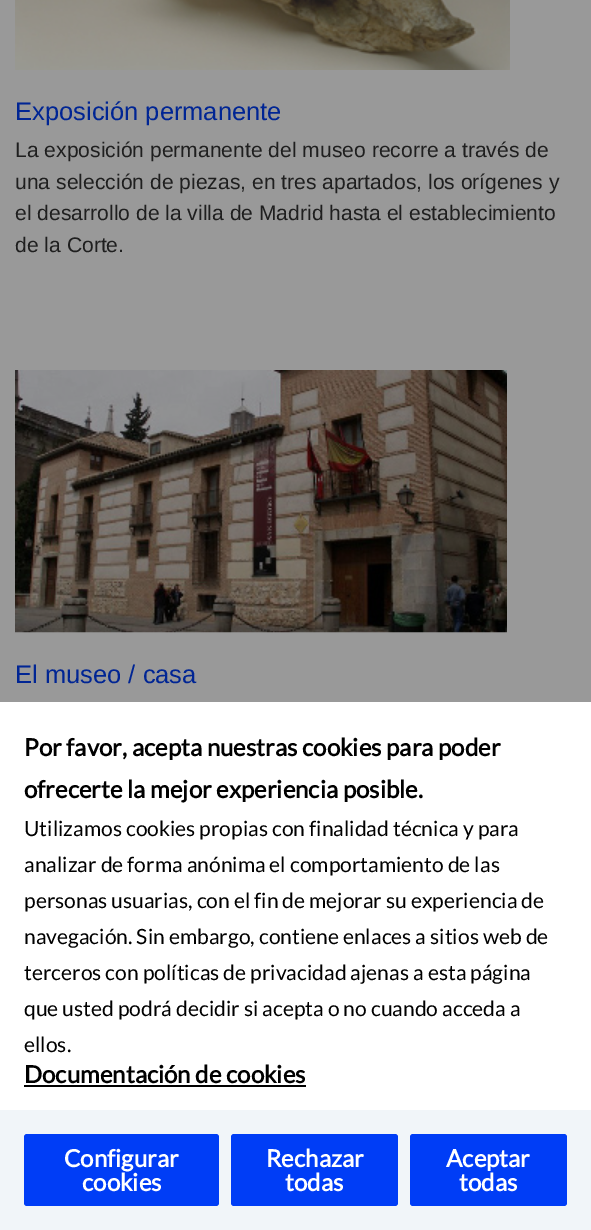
%!PS-Adobe-3.0
%%BoundingBox: 0 0 591 1230
%%LanguageLevel: 3
%%Pages: 1
%%EndComments
%%BeginProlog
/setink { 3 { 255 div 3 1 roll } repeat setrgbcolor } def
/usefont { [ exch dup neg 0 0 3 -1 roll 0 0 ] selectfont } def
/drawtext { setink usefont moveto show } def
/fillbox { setink rectfill } def
/rrect { 5 dict begin { /r /h /w /y /x } { exch def } forall
  x r add y moveto x w add y 2 copy h add r arct x w add y h add x 1 index r arct
  x y h add x y r arct x y 2 copy exch w add exch r arct closepath end } def
/drawimage { 5 dict begin { /h /w /y /x /name } { exch def } forall
  gsave x y translate w h scale
  w h 8 [w 0 0 h 0 0] name (r) file false 3 colorimage grestore end } def
%%EndProlog
%%BeginSetup
<< /PageSize [591 1230] >> setpagedevice
%%EndSetup
%%Page: 1 1
0 1230 translate 1 -1 scale
4 setmiterlimit
0 0 591 1230 153 153 153 fillbox
(assets/img1.rgb) 15 0 495 70 drawimage
(Exposición permanente) 15 120 /LiberationSans-Regular 25.5 0 37 148 drawtext
(La exposición permanente del museo recorre a través de) 15 157 /LiberationSans-Regular 21.1 31 31 31 drawtext
(una selección de piezas, en tres apartados, los orígenes y) 15 189 /LiberationSans-Regular 21.1 31 31 31 drawtext
(el desarrollo de la villa de Madrid hasta el establecimiento) 15 220 /LiberationSans-Regular 21.1 31 31 31 drawtext
(de la Corte.) 15 252 /LiberationSans-Regular 21.1 31 31 31 drawtext
(assets/img2.rgb) 15 370 492 263 drawimage
(El museo / casa) 15 683 /LiberationSans-Regular 25.5 0 37 148 drawtext
0 702 591 408 255 255 255 fillbox
(Por favor, acepta nuestras cookies para poder) 24 756 /Lato-Bold 24 0 0 0 drawtext
(ofrecerte la mejor experiencia posible.) 24 798 /Lato-Bold 24 0 0 0 drawtext
(Utilizamos cookies propias con finalidad técnica y para) 24 836 /Lato-Regular 21 0 0 0 drawtext
(analizar de forma anónima el comportamiento de las) 24 872 /Lato-Regular 21 0 0 0 drawtext
(personas usuarias, con el fin de mejorar su experiencia de) 24 908 /Lato-Regular 21 0 0 0 drawtext
(navegación. Sin embargo, contiene enlaces a sitios web de) 24 944 /Lato-Regular 21 0 0 0 drawtext
(terceros con políticas de privacidad ajenas a esta página) 24 980 /Lato-Regular 21 0 0 0 drawtext
(que usted podrá decidir si acepta o no cuando acceda a) 24 1016 /Lato-Regular 21 0 0 0 drawtext
(ellos.) 24 1052 /Lato-Regular 21 0 0 0 drawtext
(Documentación de cookies) 24 1083 /Lato-Bold 24 0 0 0 drawtext
24 1085 282 2 0 0 0 fillbox
0 1110 591 120 241 245 249 fillbox
0 61 246 setink
24 1134 195 72 3 rrect fill
(Configurar) 64 1167 /Lato-Bold 24 255 255 255 drawtext
(cookies) 82 1191 /Lato-Bold 24 255 255 255 drawtext
0 61 246 setink
231 1134 167 72 3 rrect fill
(Rechazar) 266 1167 /Lato-Bold 24 255 255 255 drawtext
(todas) 285 1191 /Lato-Bold 24 255 255 255 drawtext
0 61 246 setink
410 1134 157 72 3 rrect fill
(Aceptar) 446 1167 /Lato-Bold 24 255 255 255 drawtext
(todas) 459 1191 /Lato-Bold 24 255 255 255 drawtext
showpage
%%EOF
